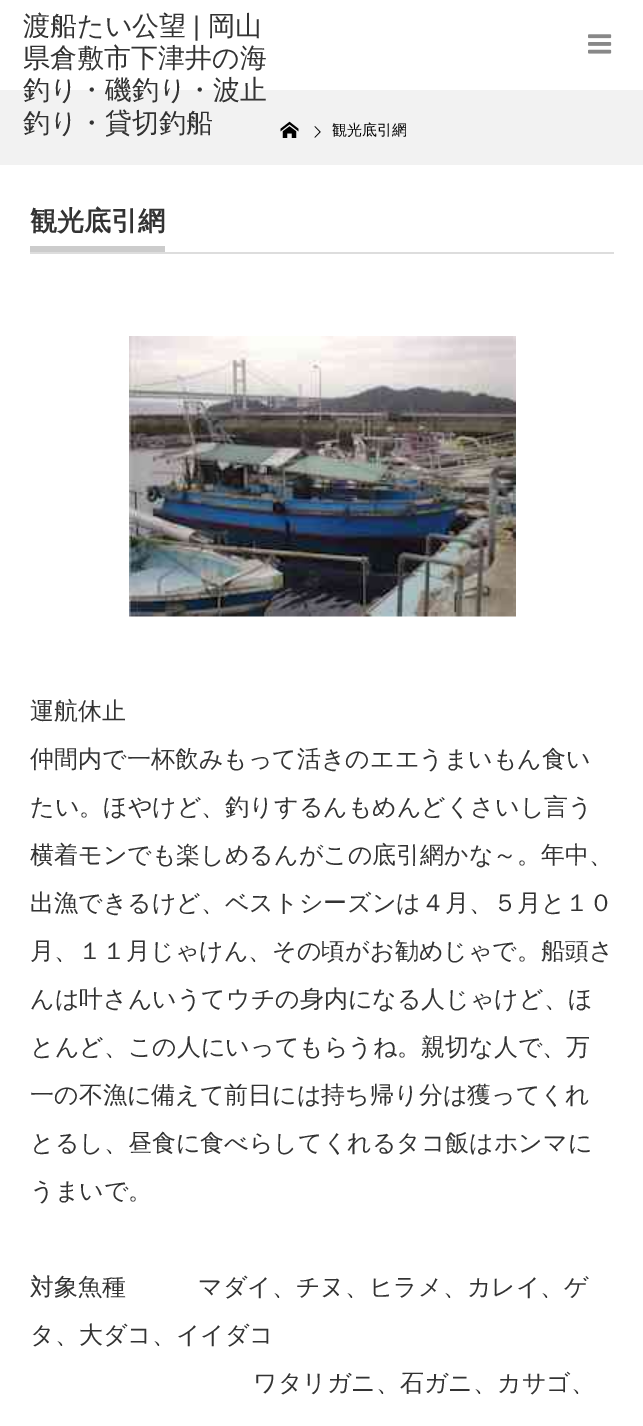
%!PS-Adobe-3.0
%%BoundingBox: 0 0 643 1426
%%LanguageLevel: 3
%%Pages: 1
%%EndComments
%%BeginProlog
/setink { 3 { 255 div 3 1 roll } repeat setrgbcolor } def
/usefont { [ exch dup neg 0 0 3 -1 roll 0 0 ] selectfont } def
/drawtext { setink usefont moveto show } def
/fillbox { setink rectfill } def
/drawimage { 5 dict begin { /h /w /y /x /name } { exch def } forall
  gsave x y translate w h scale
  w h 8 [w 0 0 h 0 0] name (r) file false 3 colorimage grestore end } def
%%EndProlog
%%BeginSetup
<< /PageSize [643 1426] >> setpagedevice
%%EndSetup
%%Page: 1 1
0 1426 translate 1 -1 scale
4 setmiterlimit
0 0 643 1426 255 255 255 fillbox
(渡船たい公望) 23 35 /WenQuanYiZenHei-Medium 27 51 51 51 drawtext
(|) 193 35 /LiberationSans-Regular 27 51 51 51 drawtext
(岡山) 208 35 /WenQuanYiZenHei-Medium 27 51 51 51 drawtext
(県倉敷市下津井の海) 23 67 /WenQuanYiZenHei-Medium 27 51 51 51 drawtext
0 90 643 75 242 242 242 fillbox
(釣り・磯釣り・波止) 23 99 /WenQuanYiZenHei-Medium 27 51 51 51 drawtext
(釣り・貸切釣船) 23 132 /WenQuanYiZenHei-Medium 27 51 51 51 drawtext
(assets/img1.rgb) 588 34 24 20 drawimage
(assets/img2.rgb) 280 121 19 17 drawimage
(assets/img3.rgb) 314 126 7 12 drawimage
(観光底引網) 332 135 /WenQuanYiZenHei-Medium 15 0 0 0 drawtext
30 252 584 2 221 221 221 fillbox
30 246 135 6 204 204 204 fillbox
(観光底引網) 30 230 /WenQuanYiZenHei-Bold 27 51 51 51 drawtext
(assets/img4.rgb) 129 336 387 281 drawimage
(運航休止) 30 719 /WenQuanYiZenHei-Medium 24 51 51 51 drawtext
(仲間内で一杯飲みもって活きのエエうまいもん食い) 30 767 /WenQuanYiZenHei-Medium 24 51 51 51 drawtext
(たい。ほやけど、釣りするんもめんどくさいし言う) 30 815 /WenQuanYiZenHei-Medium 24 51 51 51 drawtext
(横着モンでも楽しめるんがこの底引網かな～。年中、) 30 863 /WenQuanYiZenHei-Medium 24 51 51 51 drawtext
(出漁できるけど、ベストシーズンは４月、５月と１０) 30 911 /WenQuanYiZenHei-Medium 24 51 51 51 drawtext
(月、１１月じゃけん、その頃がお勧めじゃで。船頭さ) 30 959 /WenQuanYiZenHei-Medium 24 51 51 51 drawtext
(んは叶さんいうてウチの身内になる人じゃけど、ほ) 30 1007 /WenQuanYiZenHei-Medium 24 51 51 51 drawtext
(とんど、この人にいってもらうね。親切な人で、万) 30 1055 /WenQuanYiZenHei-Medium 24 51 51 51 drawtext
(一の不漁に備えて前日には持ち帰り分は獲ってくれ) 30 1103 /WenQuanYiZenHei-Medium 24 51 51 51 drawtext
(とるし、昼食に食べらしてくれるタコ飯はホンマに) 30 1151 /WenQuanYiZenHei-Medium 24 51 51 51 drawtext
(うまいで。) 30 1199 /WenQuanYiZenHei-Medium 24 51 51 51 drawtext
(対象魚種　　　マダイ、チヌ、ヒラメ、カレイ、ゲ) 30 1295 /WenQuanYiZenHei-Medium 24 51 51 51 drawtext
(タ、大ダコ、イイダコ) 30 1343 /WenQuanYiZenHei-Medium 24 51 51 51 drawtext
(ワタリガニ、石ガニ、カサゴ、) 253 1391 /WenQuanYiZenHei-Medium 24 51 51 51 drawtext
showpage
%%EOF
